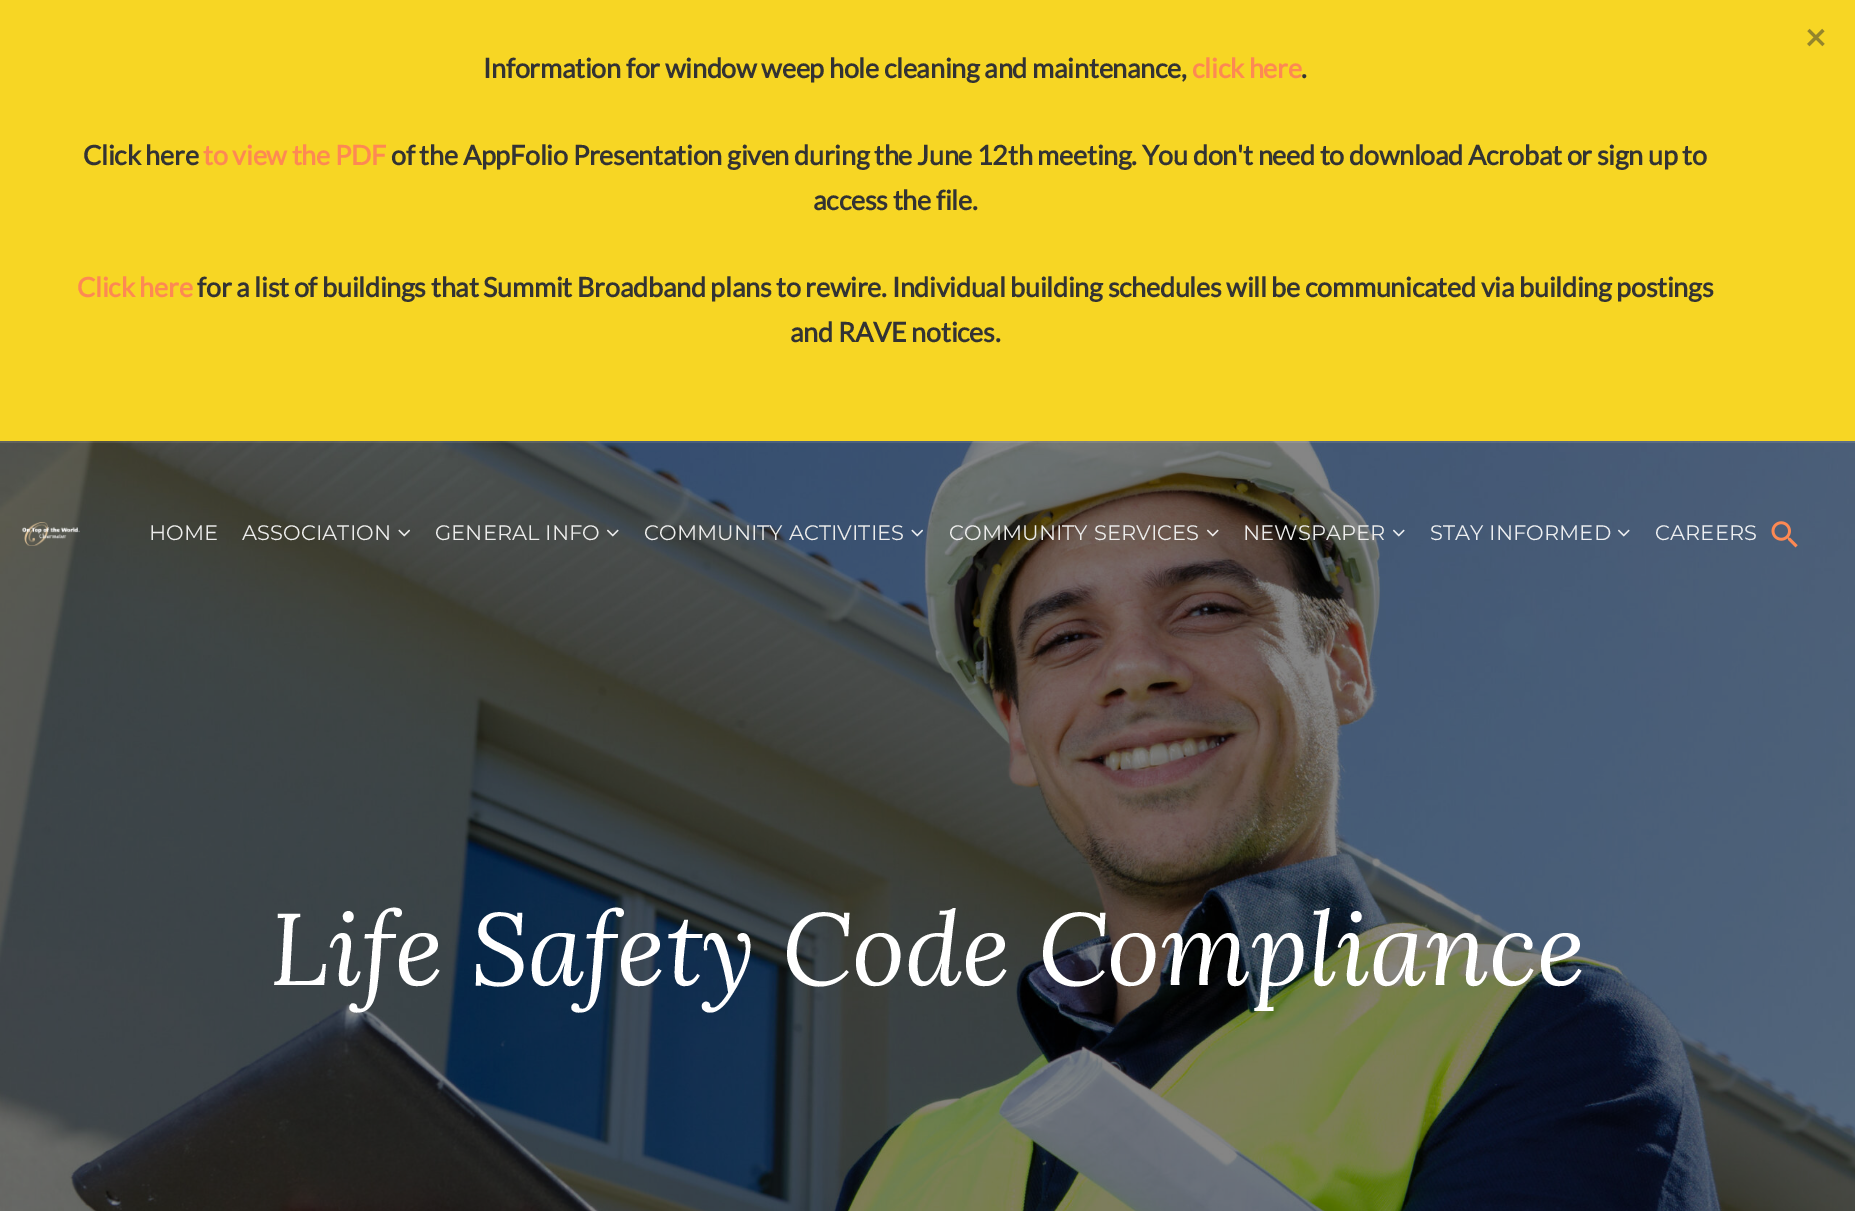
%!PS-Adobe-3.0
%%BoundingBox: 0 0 1855 1211
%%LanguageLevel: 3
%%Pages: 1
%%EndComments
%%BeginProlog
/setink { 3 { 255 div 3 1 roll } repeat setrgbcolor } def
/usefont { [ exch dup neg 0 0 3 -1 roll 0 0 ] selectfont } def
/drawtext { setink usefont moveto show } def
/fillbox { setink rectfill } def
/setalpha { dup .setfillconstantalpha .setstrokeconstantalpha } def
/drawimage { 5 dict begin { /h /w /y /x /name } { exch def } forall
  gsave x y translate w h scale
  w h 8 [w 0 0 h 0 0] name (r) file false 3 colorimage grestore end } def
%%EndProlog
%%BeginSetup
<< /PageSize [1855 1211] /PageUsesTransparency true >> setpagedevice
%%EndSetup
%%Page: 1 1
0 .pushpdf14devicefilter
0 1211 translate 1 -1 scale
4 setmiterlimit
0 0 1855 1211 255 255 255 fillbox
0 0 1855 441 247 214 36 fillbox
(×) 1805 50 /Lato-Bold 36 149 133 44 drawtext
/Lato-Bold 27 usefont
51 51 51 setink
483 78 moveto -0.3 0 (Information for window weep hole cleaning and maintenance,) ashow
253 137 83 setink
1192 78 moveto -0.3 0 (click here) ashow
51 51 51 setink
1301 78 moveto -0.3 0 (.) ashow
83 165 moveto -0.3 0 (Click here) ashow
253 137 83 setink
203 165 moveto -0.3 0 (to view the PDF) ashow
51 51 51 setink
391 165 moveto -0.3 0 (of the AppFolio Presentation given during the June 12th meeting. You don't need to download Acrobat or sign up to) ashow
813 210 moveto -0.3 0 (access the file.) ashow
253 137 83 setink
77 297 moveto -0.3 0 (Click here) ashow
51 51 51 setink
197 297 moveto -0.3 0 (for a list of buildings that Summit Broadband plans to rewire. Individual building schedules will be communicated via building postings) ashow
790 342 moveto -0.3 0 (and RAVE notices.) ashow
(assets/img9.rgb) 0 441 1855 770 drawimage
0.1 setalpha
0 441 1855 2 255 255 255 fillbox
1 setalpha
(assets/img1.rgb) 22 522 58 24 drawimage
/Montserrat-Regular 21 usefont
236 236 235 setink
149 540 moveto 0.1 0 (HOME) ashow
242 540 moveto 0.1 0 (ASSOCIATION) ashow
(assets/img2.rgb) 398 529 12 8 drawimage
435 540 moveto 0.1 0 (GENERAL INFO) ashow
(assets/img3.rgb) 607 529 12 8 drawimage
644 540 moveto 0.1 0 (COMMUNITY ACTIVITIES) ashow
(assets/img4.rgb) 911 529 12 8 drawimage
949 540 moveto 0.1 0 (COMMUNITY SERVICES) ashow
(assets/img5.rgb) 1207 529 12 8 drawimage
1243 540 moveto 0.1 0 (NEWSPAPER) ashow
(assets/img6.rgb) 1393 529 12 8 drawimage
237 239 241 setink
1430 540 moveto 0.1 0 (STAY INFORMED) ashow
(assets/img7.rgb) 1618 529 12 8 drawimage
1655 540 moveto 0.1 0 (CAREERS) ashow
(assets/img8.rgb) 1771 521 27 27 drawimage
(Life Safety Code Compliance) 270 985 /Lora-Italic 102 255 255 255 drawtext
.poppdf14devicefilter showpage
%%EOF
